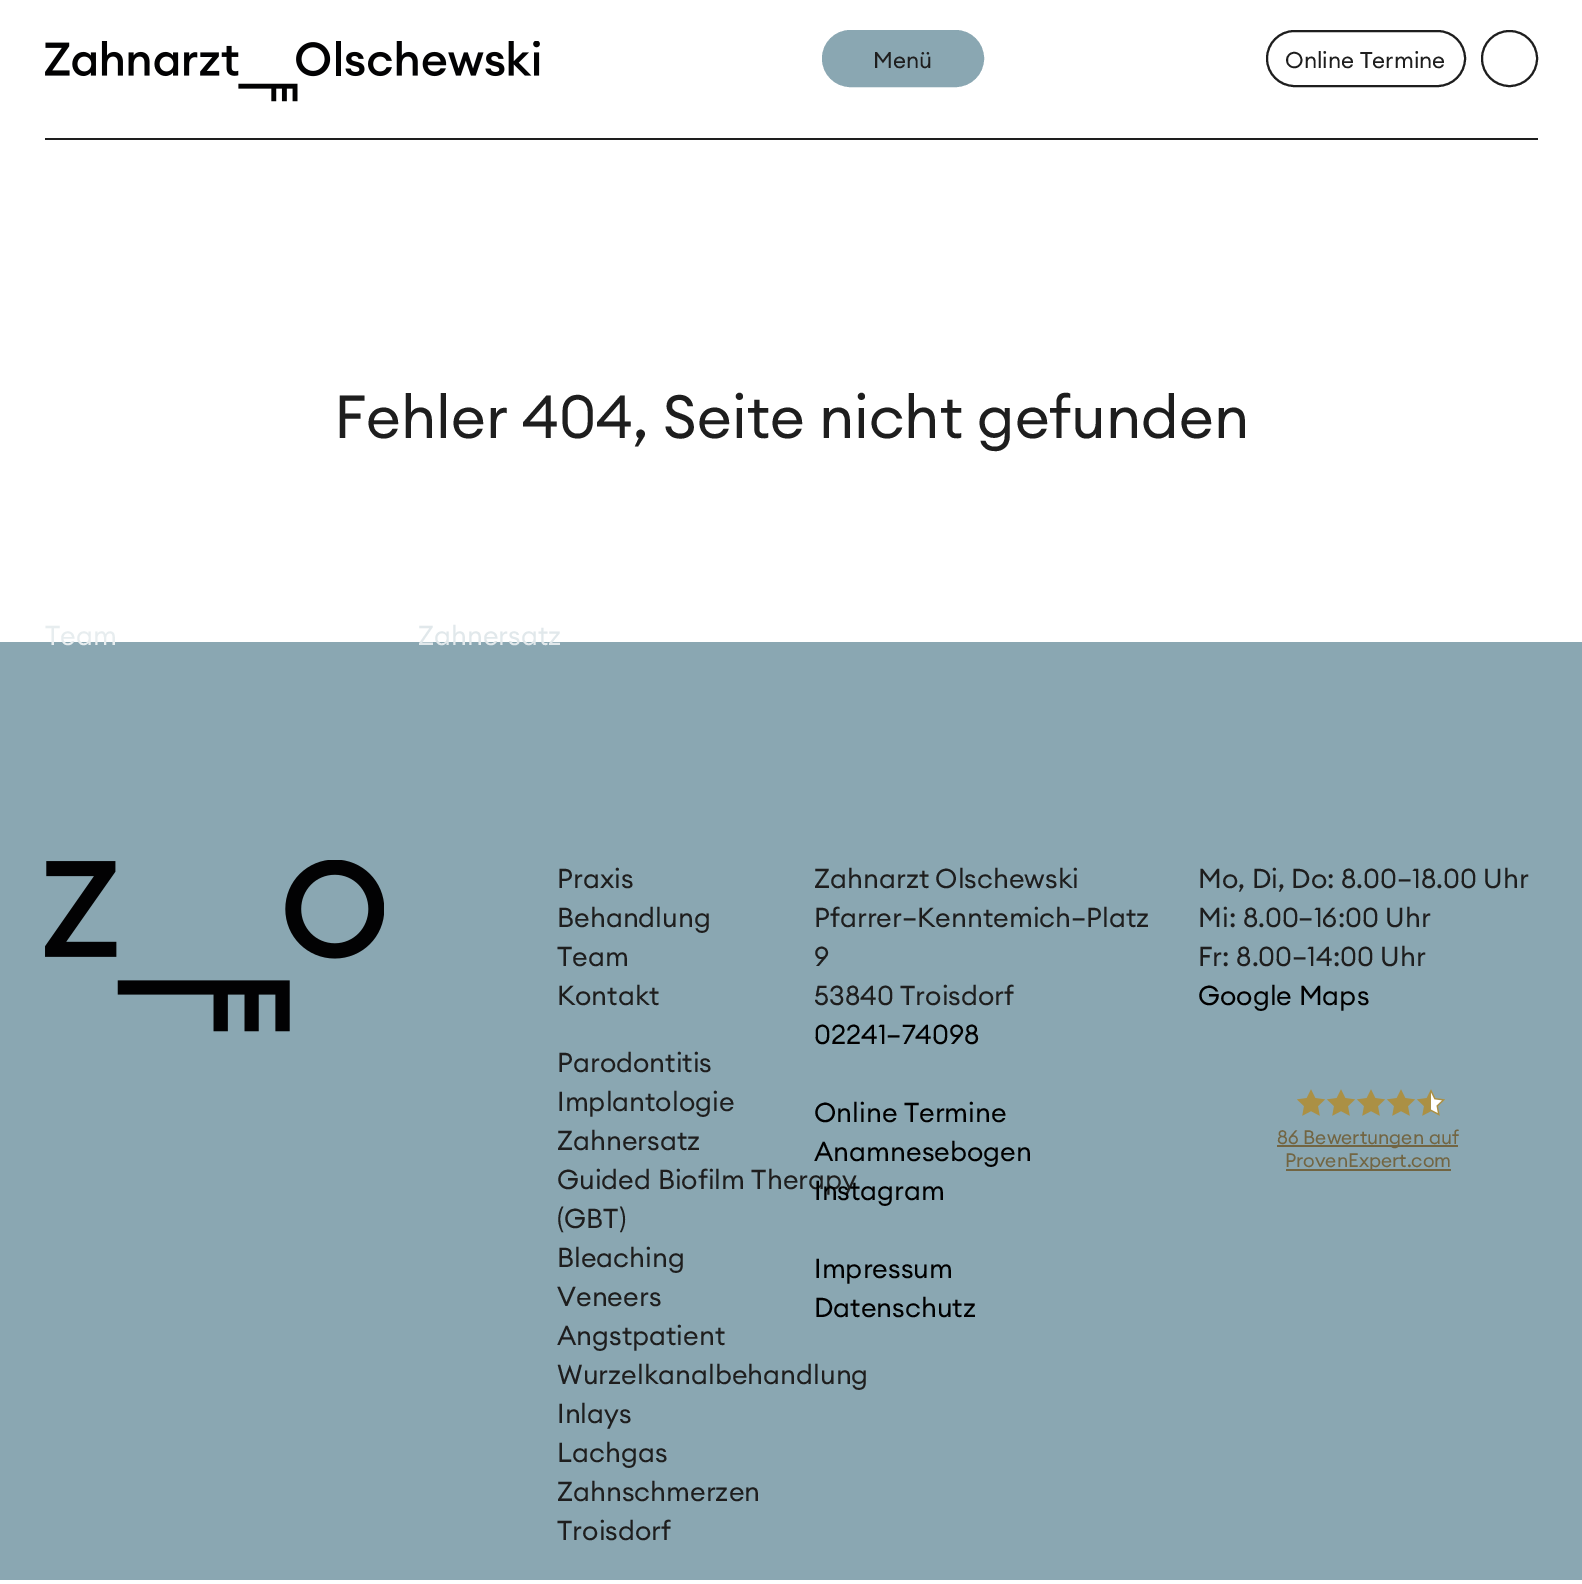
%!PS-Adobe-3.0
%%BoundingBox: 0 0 1582 1584
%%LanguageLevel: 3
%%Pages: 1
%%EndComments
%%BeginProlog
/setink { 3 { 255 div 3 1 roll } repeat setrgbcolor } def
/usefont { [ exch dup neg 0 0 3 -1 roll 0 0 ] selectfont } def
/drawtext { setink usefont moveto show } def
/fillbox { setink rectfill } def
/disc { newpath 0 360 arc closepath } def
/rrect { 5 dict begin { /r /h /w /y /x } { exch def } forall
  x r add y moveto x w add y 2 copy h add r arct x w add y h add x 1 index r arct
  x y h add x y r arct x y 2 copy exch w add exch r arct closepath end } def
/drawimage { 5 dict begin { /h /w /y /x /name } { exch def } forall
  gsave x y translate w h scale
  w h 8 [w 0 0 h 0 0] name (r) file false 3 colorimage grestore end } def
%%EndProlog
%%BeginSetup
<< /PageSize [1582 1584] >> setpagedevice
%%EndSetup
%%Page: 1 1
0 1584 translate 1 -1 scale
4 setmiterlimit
0 0 1582 1584 255 255 255 fillbox
(assets/img1.rgb) 45 41 495 61 drawimage
138 167 178 setink
823 31 160 55 27.5 rrect gsave fill grestore
2 setlinewidth
stroke
(Menü) 873 68 /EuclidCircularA-Regular 22.5 30 30 30 drawtext
1267 31 198 55 27.5 rrect stroke
(Online Termine) 1285 68 /EuclidCircularA-Regular 22.5 30 30 30 drawtext
1509.5 58.5 27.5 disc stroke
45 138 1493 2 30 30 30 fillbox
(Fehler 404, Seite nicht gefunden) 334 438 /EuclidCircularA-Regular 60 30 30 30 drawtext
0 642 1582 938 138 167 178 fillbox
(Team) 45 645 /EuclidCircularA-Regular 27 231 237 239 drawtext
(Zahnersatz) 418 645 /EuclidCircularA-Regular 27 225 232 235 drawtext
(assets/img2.rgb) 45 860 339 172 drawimage
(Praxis) 557 888 /EuclidCircularA-Regular 27 30 30 30 drawtext
(Behandlung) 557 927 /EuclidCircularA-Regular 27 30 30 30 drawtext
(Team) 557 966 /EuclidCircularA-Regular 27 30 30 30 drawtext
(Kontakt) 557 1005 /EuclidCircularA-Regular 27 30 30 30 drawtext
(Parodontitis) 557 1072 /EuclidCircularA-Regular 27 30 30 30 drawtext
(Implantologie) 557 1111 /EuclidCircularA-Regular 27 30 30 30 drawtext
(Zahnersatz) 557 1150 /EuclidCircularA-Regular 27 30 30 30 drawtext
(Guided Biofilm Therapy) 557 1189 /EuclidCircularA-Regular 27 30 30 30 drawtext
(\(GBT\)) 557 1228 /EuclidCircularA-Regular 27 30 30 30 drawtext
(Bleaching) 557 1267 /EuclidCircularA-Regular 27 30 30 30 drawtext
(Veneers) 557 1306 /EuclidCircularA-Regular 27 30 30 30 drawtext
(Angstpatient) 557 1345 /EuclidCircularA-Regular 27 30 30 30 drawtext
(Wurzelkanalbehandlung) 557 1384 /EuclidCircularA-Regular 27 30 30 30 drawtext
(Inlays) 557 1423 /EuclidCircularA-Regular 27 30 30 30 drawtext
(Lachgas) 557 1462 /EuclidCircularA-Regular 27 30 30 30 drawtext
(Zahnschmerzen) 557 1501 /EuclidCircularA-Regular 27 30 30 30 drawtext
(Troisdorf) 557 1540 /EuclidCircularA-Regular 27 30 30 30 drawtext
(Zahnarzt Olschewski) 814 888 /EuclidCircularA-Regular 27 30 30 30 drawtext
(Pfarrer–Kenntemich–Platz) 814 927 /EuclidCircularA-Regular 27 30 30 30 drawtext
(9) 814 966 /EuclidCircularA-Regular 27 30 30 30 drawtext
(53840 Troisdorf) 814 1005 /EuclidCircularA-Regular 27 30 30 30 drawtext
(02241–74098) 814 1044 /EuclidCircularA-Regular 27 0 0 0 drawtext
(Online Termine) 814 1122 /EuclidCircularA-Regular 27 0 0 0 drawtext
(Anamnesebogen) 814 1161 /EuclidCircularA-Regular 27 0 0 0 drawtext
(Instagram) 814 1200 /EuclidCircularA-Regular 27 0 0 0 drawtext
(Impressum) 814 1278 /EuclidCircularA-Regular 27 0 0 0 drawtext
(Datenschutz) 814 1317 /EuclidCircularA-Regular 27 0 0 0 drawtext
(Mo, Di, Do: 8.00–18.00 Uhr) 1198 888 /EuclidCircularA-Regular 27 30 30 30 drawtext
(Mi: 8.00–16:00 Uhr) 1198 927 /EuclidCircularA-Regular 27 30 30 30 drawtext
(Fr: 8.00–14:00 Uhr) 1198 966 /EuclidCircularA-Regular 27 30 30 30 drawtext
(Google Maps) 1198 1005 /EuclidCircularA-Regular 27 0 0 0 drawtext
(assets/img3.rgb) 1297 1089 28 27 drawimage
(assets/img3.rgb) 1327 1089 28 27 drawimage
(assets/img3.rgb) 1357 1089 28 27 drawimage
(assets/img3.rgb) 1387 1089 28 27 drawimage
(assets/img4.rgb) 1417 1089 28 27 drawimage
1277 1145 181 2 114 101 66 fillbox
(86 Bewertungen auf) 1277 1144 /EuclidCircularA-Regular 19.25 114 101 66 drawtext
1286 1169 165 2 114 101 66 fillbox
(ProvenExpert.com) 1285 1167 /EuclidCircularA-Regular 19.25 114 101 66 drawtext
showpage
%%EOF
